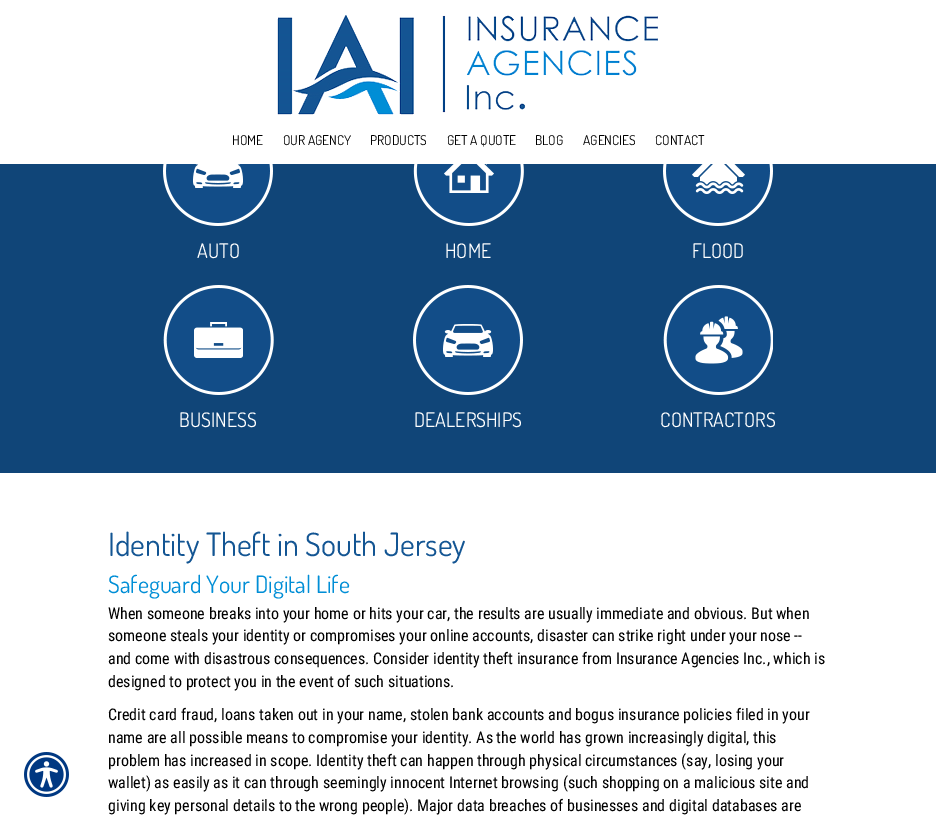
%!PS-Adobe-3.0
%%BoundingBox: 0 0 936 826
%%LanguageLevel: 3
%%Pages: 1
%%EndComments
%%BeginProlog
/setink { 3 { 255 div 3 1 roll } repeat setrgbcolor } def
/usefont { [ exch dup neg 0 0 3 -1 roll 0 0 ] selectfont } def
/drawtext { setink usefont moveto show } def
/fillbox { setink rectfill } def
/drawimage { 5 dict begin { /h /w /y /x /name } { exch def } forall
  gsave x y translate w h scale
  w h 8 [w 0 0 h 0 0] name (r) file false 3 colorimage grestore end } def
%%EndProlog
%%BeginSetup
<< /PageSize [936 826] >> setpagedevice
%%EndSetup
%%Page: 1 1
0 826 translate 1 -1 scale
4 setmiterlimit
0 0 936 826 255 255 255 fillbox
(assets/img1.rgb) 24 752 45 45 drawimage
(assets/img2.rgb) 277 15 381 100 drawimage
(HOME) 232 145 /Dosis-Regular 13.5 0 0 0 drawtext
(OUR AGENCY) 283 145 /Dosis-Regular 13.5 0 0 0 drawtext
(PRODUCTS) 370 145 /Dosis-Regular 13.5 0 0 0 drawtext
(GET A QUOTE) 447 145 /Dosis-Regular 13.5 0 0 0 drawtext
(BLOG) 535 145 /Dosis-Regular 13.5 0 0 0 drawtext
(AGENCIES) 583 145 /Dosis-Regular 13.5 0 0 0 drawtext
(CONTACT) 655 145 /Dosis-Regular 13.5 0 0 0 drawtext
0 164 936 309 16 69 120 fillbox
(assets/img3.rgb) 163 164 110 62 drawimage
(AUTO) 197 258 /Dosis-Regular 20 255 255 255 drawtext
(assets/img4.rgb) 413 164 111 62 drawimage
(HOME) 445 258 /Dosis-Regular 20 255 255 255 drawtext
(assets/img5.rgb) 663 164 110 62 drawimage
(FLOOD) 692 258 /Dosis-Regular 20 255 255 255 drawtext
(assets/img6.rgb) 163 285 111 110 drawimage
(BUSINESS) 179 427 /Dosis-Regular 20 255 255 255 drawtext
(assets/img7.rgb) 413 285 110 110 drawimage
(DEALERSHIPS) 414 427 /Dosis-Regular 20 255 255 255 drawtext
(assets/img8.rgb) 663 285 110 110 drawimage
(CONTRACTORS) 660 427 /Dosis-Regular 20 255 255 255 drawtext
(Identity Theft in South Jersey) 108 556 /Dosis-Regular 32 19 85 147 drawtext
(Safeguard Your Digital Life) 108 593 /Dosis-Regular 24 0 142 214 drawtext
(When someone breaks into your home or hits your car, the results are usually immediate and obvious. But when) 108 619 /RobotoCondensed-Regular 16 0 0 0 drawtext
(someone steals your identity or compromises your online accounts, disaster can strike right under your nose --) 108 641 /RobotoCondensed-Regular 16 0 0 0 drawtext
(and come with disastrous consequences. Consider identity theft insurance from Insurance Agencies Inc., which is) 108 664 /RobotoCondensed-Regular 16 0 0 0 drawtext
(designed to protect you in the event of such situations.) 108 687 /RobotoCondensed-Regular 16 0 0 0 drawtext
(Credit card fraud, loans taken out in your name, stolen bank accounts and bogus insurance policies filed in your) 108 720 /RobotoCondensed-Regular 16 0 0 0 drawtext
(name are all possible means to compromise your identity. As the world has grown increasingly digital, this) 108 743 /RobotoCondensed-Regular 16 0 0 0 drawtext
(problem has increased in scope. Identity theft can happen through physical circumstances \(say, losing your) 108 766 /RobotoCondensed-Regular 16 0 0 0 drawtext
(wallet\) as easily as it can through seemingly innocent Internet browsing \(such shopping on a malicious site and) 108 788 /RobotoCondensed-Regular 16 0 0 0 drawtext
(giving key personal details to the wrong people\). Major data breaches of businesses and digital databases are) 108 811 /RobotoCondensed-Regular 16 0 0 0 drawtext
showpage
%%EOF
